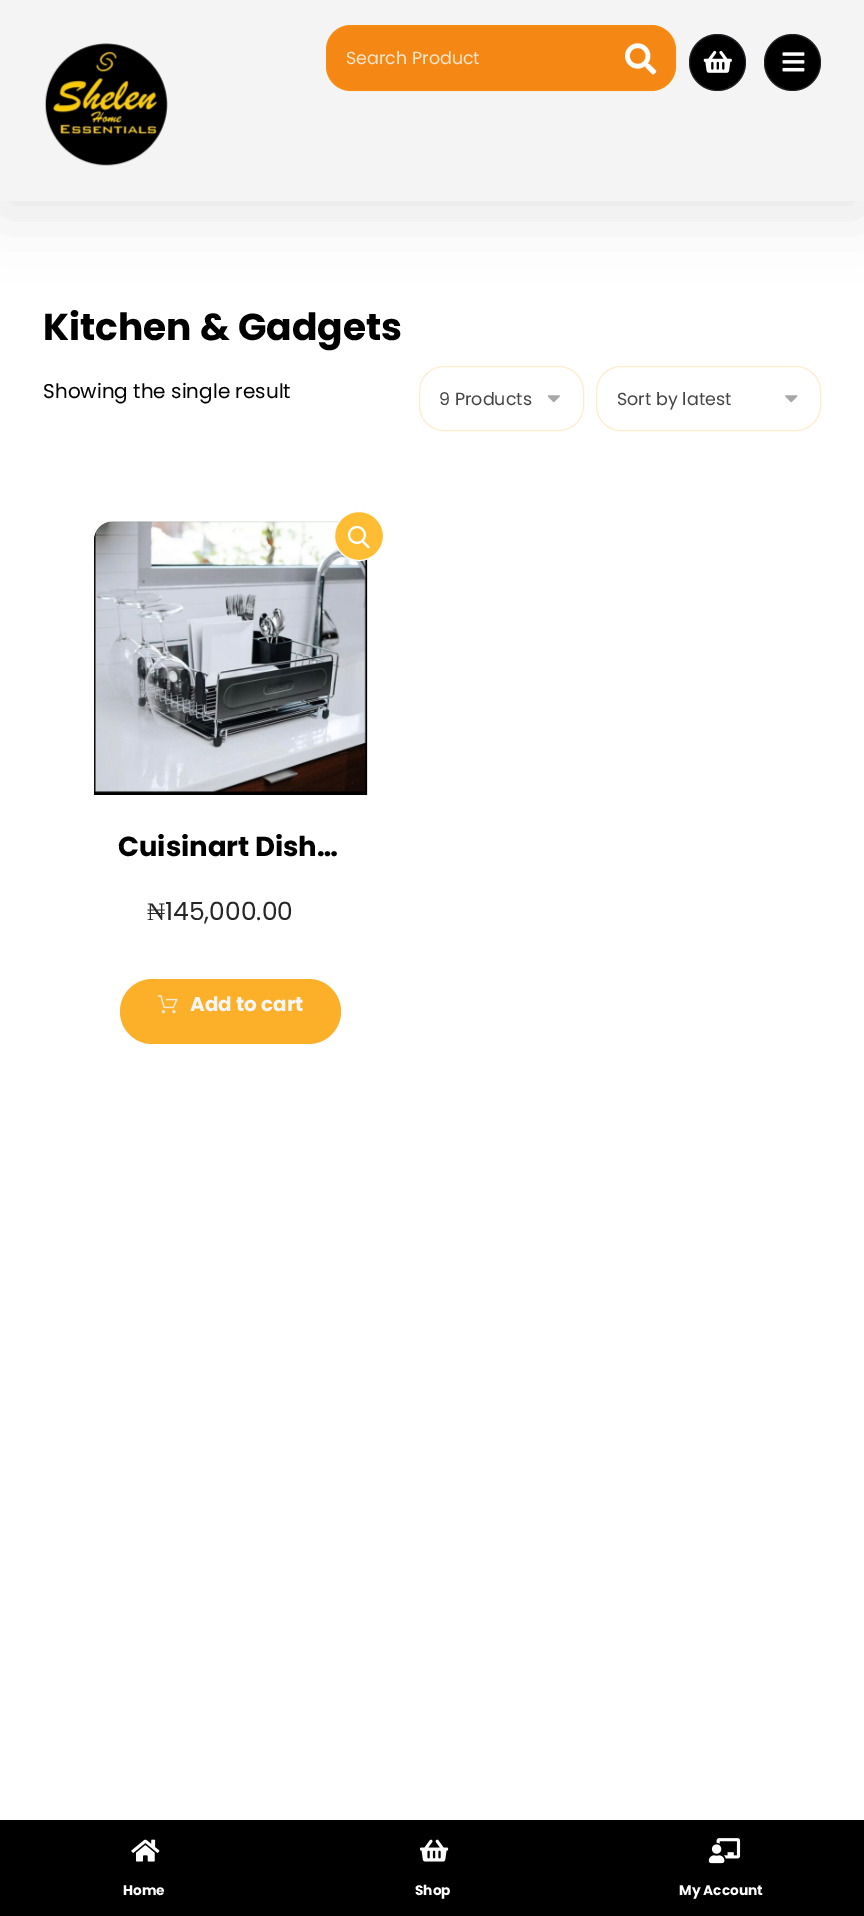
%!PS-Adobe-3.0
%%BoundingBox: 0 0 864 1916
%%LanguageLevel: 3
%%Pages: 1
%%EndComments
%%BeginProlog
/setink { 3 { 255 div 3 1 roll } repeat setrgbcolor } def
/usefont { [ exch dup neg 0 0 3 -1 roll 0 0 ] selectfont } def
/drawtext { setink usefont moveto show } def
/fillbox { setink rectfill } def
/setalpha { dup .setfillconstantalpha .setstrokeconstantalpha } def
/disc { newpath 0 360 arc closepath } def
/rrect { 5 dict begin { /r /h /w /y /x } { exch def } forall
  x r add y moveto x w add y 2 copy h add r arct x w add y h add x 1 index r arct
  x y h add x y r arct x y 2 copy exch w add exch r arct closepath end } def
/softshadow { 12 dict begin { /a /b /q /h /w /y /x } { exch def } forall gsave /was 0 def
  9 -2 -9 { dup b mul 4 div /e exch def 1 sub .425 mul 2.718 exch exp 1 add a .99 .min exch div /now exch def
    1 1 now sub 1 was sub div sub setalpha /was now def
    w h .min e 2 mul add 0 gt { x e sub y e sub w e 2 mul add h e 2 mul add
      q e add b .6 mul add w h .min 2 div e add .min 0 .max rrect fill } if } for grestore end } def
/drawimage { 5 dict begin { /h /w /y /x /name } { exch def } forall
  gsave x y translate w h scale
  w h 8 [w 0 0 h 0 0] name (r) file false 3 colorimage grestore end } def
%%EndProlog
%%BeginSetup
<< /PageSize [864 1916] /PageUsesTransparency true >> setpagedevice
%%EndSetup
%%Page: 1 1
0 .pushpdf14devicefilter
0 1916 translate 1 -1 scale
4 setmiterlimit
0 0 864 1916 255 255 255 fillbox
0 0 0 setink
0 13 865 201 0 31 0.1 softshadow
0 0 864 201 245 244 244 fillbox
(assets/img1.rgb) 45 43 123 123 drawimage
245 136 20 setink
326 25 350 66 25 rrect fill
0.2 setalpha
252 161 3 setink
326.5 25.5 349 65 24.5 rrect stroke
1 setalpha
(Search Product) 346 64 /Poppins-Regular 17.5 253 231 208 drawtext
(assets/img2.rgb) 625 43 32 32 drawimage
0 0 0 setink
717.5 62.5 28.5 disc fill
0.2 setalpha
159 182 203 setink
717.5 62.5 28 disc stroke
1 setalpha
(assets/img3.rgb) 703 50 29 23 drawimage
0 0 0 setink
792.5 62.5 28.5 disc fill
0.2 setalpha
159 182 203 setink
792.5 62.5 28 disc stroke
1 setalpha
(assets/img4.rgb) 782 52 23 20 drawimage
(Kitchen & Gadgets) 43 340 /Poppins-Bold 37.5 0 0 0 drawtext
(Showing the single result) 43 398 /Poppins-Regular 20 0 0 0 drawtext
(assets/img5.rgb) 548 395 12 8 drawimage
254 236 205 setink
419.5 366.5 164 64 24.5 rrect stroke
(9 Products) 439 405 /Poppins-Regular 17.5 68 68 68 drawtext
(assets/img6.rgb) 785 395 13 8 drawimage
254 236 205 setink
596.5 366.5 224 64 24.5 rrect stroke
(Sort by latest) 617 405 /Poppins-Regular 17.5 68 68 68 drawtext
(assets/img8.rgb) 94 521 274 274 drawimage
255 189 51 setink
359 536 24.5 disc gsave fill grestore
255 255 255 setink
stroke
(assets/img7.rgb) 347 525 23 24 drawimage
(Cuisinart Dish…) 118 856 /Poppins-Bold 27.5 0 0 0 drawtext
(₦) 147 920 /LiberationSerif-Regular 25 38 38 38 drawtext
(145,000.00) 165 920 /Poppins-Regular 25 38 38 38 drawtext
252 175 41 setink
120 979 221 65 32.5 rrect fill
(assets/img9.rgb) 157 995 21 19 drawimage
(Add to cart) 190 1011 /Poppins-Bold 20 247 246 246 drawtext
0 1820 864 96 0 0 0 fillbox
(assets/img10.rgb) 131 1839 29 23 drawimage
(Home) 123 1895 /Poppins-Bold 13.75 255 255 255 drawtext
(assets/img11.rgb) 420 1839 29 23 drawimage
(Shop) 415 1895 /Poppins-Bold 13.75 255 255 255 drawtext
(assets/img12.rgb) 708 1838 33 26 drawimage
(My Account) 679 1895 /Poppins-Bold 13.75 255 255 255 drawtext
.poppdf14devicefilter showpage
%%EOF
